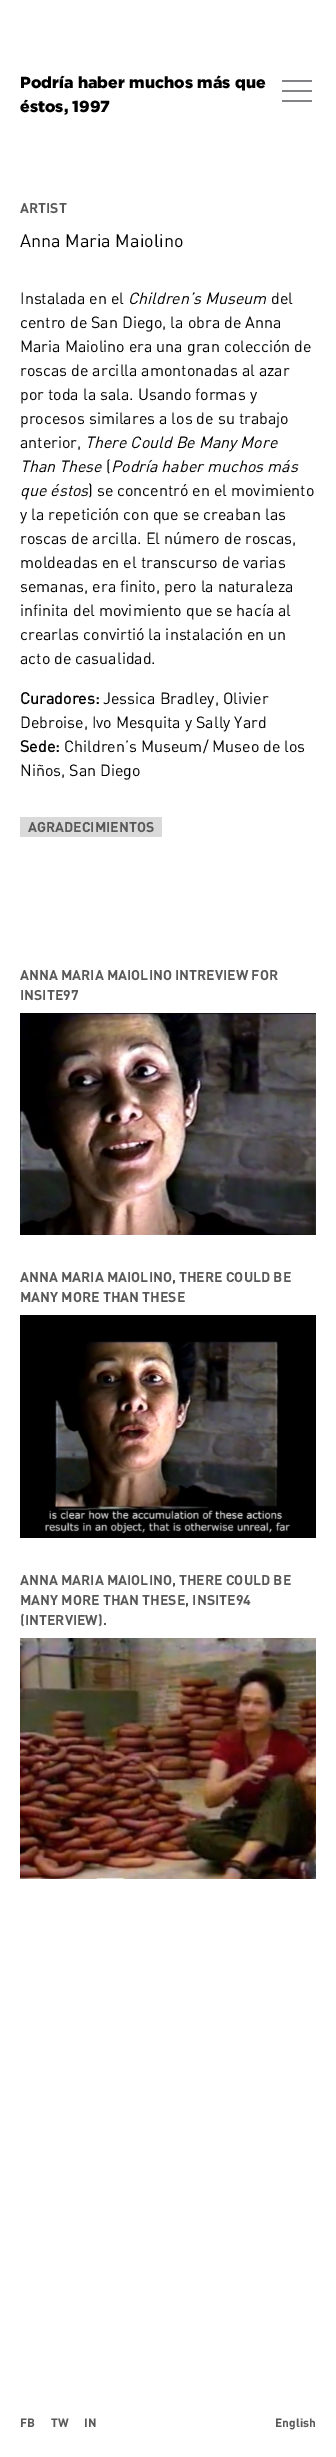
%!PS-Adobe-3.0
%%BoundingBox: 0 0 336 2457
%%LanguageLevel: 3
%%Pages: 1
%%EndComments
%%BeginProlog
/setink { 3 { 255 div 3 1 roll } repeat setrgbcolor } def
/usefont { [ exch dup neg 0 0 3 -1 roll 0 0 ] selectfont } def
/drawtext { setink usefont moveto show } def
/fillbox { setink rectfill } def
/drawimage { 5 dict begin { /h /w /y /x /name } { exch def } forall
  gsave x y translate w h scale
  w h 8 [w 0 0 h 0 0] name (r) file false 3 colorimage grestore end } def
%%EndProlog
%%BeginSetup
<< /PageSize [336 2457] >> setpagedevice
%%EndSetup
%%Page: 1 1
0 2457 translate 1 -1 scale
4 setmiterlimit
0 0 336 2457 255 255 255 fillbox
(Podría haber muchos más que) 20 88 /Gotham-Black 16 0 0 0 drawtext
(éstos, 1997) 20 112 /Gotham-Black 16 0 0 0 drawtext
(ARTIST) 20 213 /DIN-Bold 14 89 89 89 drawtext
(Anna Maria Maiolino) 20 247 /DIN-Regular 18 0 0 0 drawtext
(Instalada en el) 20 304 /DIN-Regular 16 0 0 0 drawtext
(Children’s Museum) 128 304 /DIN-Italic 16 0 0 0 drawtext
(del) 271 304 /DIN-Regular 16 0 0 0 drawtext
(centro de San Diego, la obra de Anna) 20 328 /DIN-Regular 16 0 0 0 drawtext
(Maria Maiolino era una gran colección de) 20 352 /DIN-Regular 16 0 0 0 drawtext
(roscas de arcilla amontonadas al azar) 20 376 /DIN-Regular 16 0 0 0 drawtext
(por toda la sala. Usando formas y) 20 400 /DIN-Regular 16 0 0 0 drawtext
(procesos similares a los de su trabajo) 20 424 /DIN-Regular 16 0 0 0 drawtext
(anterior,) 20 448 /DIN-Regular 16 0 0 0 drawtext
(There Could Be Many More) 85 448 /DIN-Italic 16 0 0 0 drawtext
(Than These) 20 472 /DIN-Italic 16 0 0 0 drawtext
(\() 106 472 /DIN-Regular 16 0 0 0 drawtext
(Podría haber muchos más) 111 472 /DIN-Italic 16 0 0 0 drawtext
(que éstos) 20 496 /DIN-Italic 16 0 0 0 drawtext
(\) se concentró en el movimiento) 88 496 /DIN-Regular 16 0 0 0 drawtext
(y la repetición con que se creaban las) 20 520 /DIN-Regular 16 0 0 0 drawtext
(roscas de arcilla. El número de roscas,) 20 544 /DIN-Regular 16 0 0 0 drawtext
(moldeadas en el transcurso de varias) 20 568 /DIN-Regular 16 0 0 0 drawtext
(semanas, era finito, pero la naturaleza) 20 592 /DIN-Regular 16 0 0 0 drawtext
(infinita del movimiento que se hacía al) 20 616 /DIN-Regular 16 0 0 0 drawtext
(crearlas convirtió la instalación en un) 20 640 /DIN-Regular 16 0 0 0 drawtext
(acto de casualidad.) 20 664 /DIN-Regular 16 0 0 0 drawtext
(Curadores:) 20 704 /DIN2-Bold 16 0 0 0 drawtext
(Jessica Bradley, Olivier) 103 704 /DIN-Regular 16 0 0 0 drawtext
(Debroise, Ivo Mesquita y Sally Yard) 20 728 /DIN-Regular 16 0 0 0 drawtext
(Sede:) 20 752 /DIN2-Bold 16 0 0 0 drawtext
(Children’s Museum/ Museo de los) 64 752 /DIN-Regular 16 0 0 0 drawtext
(Niños, San Diego) 20 776 /DIN-Regular 16 0 0 0 drawtext
20 817 142 20 218 218 218 fillbox
(AGRADECIMIENTOS) 28 832 /DIN-Bold 14 89 89 89 drawtext
(ANNA MARIA MAIOLINO INTREVIEW FOR) 20 980 /DIN-Bold 14 89 89 89 drawtext
(INSITE97) 20 1000 /DIN-Bold 14 89 89 89 drawtext
(assets/img1.rgb) 20 1013 296 222 drawimage
(ANNA MARIA MAIOLINO, THERE COULD BE) 20 1282 /DIN-Bold 14 89 89 89 drawtext
(MANY MORE THAN THESE) 20 1302 /DIN-Bold 14 89 89 89 drawtext
(assets/img2.rgb) 20 1315 296 223 drawimage
(ANNA MARIA MAIOLINO, THERE COULD BE) 20 1585 /DIN-Bold 14 89 89 89 drawtext
(MANY MORE THAN THESE, INSITE94) 20 1605 /DIN-Bold 14 89 89 89 drawtext
(\(INTERVIEW\).) 20 1625 /DIN-Bold 14 89 89 89 drawtext
(assets/img3.rgb) 20 1638 296 241 drawimage
282 90 30 2 128 130 133 fillbox
282 80 30 2 128 130 133 fillbox
282 100 30 2 128 130 133 fillbox
(FB) 20 2427 /DIN-Bold 12 89 89 89 drawtext
(TW) 51 2427 /DIN-Bold 12 89 89 89 drawtext
(IN) 84 2427 /DIN-Bold 12 89 89 89 drawtext
(English) 275 2427 /DIN-Bold 12 89 89 89 drawtext
showpage
%%EOF
